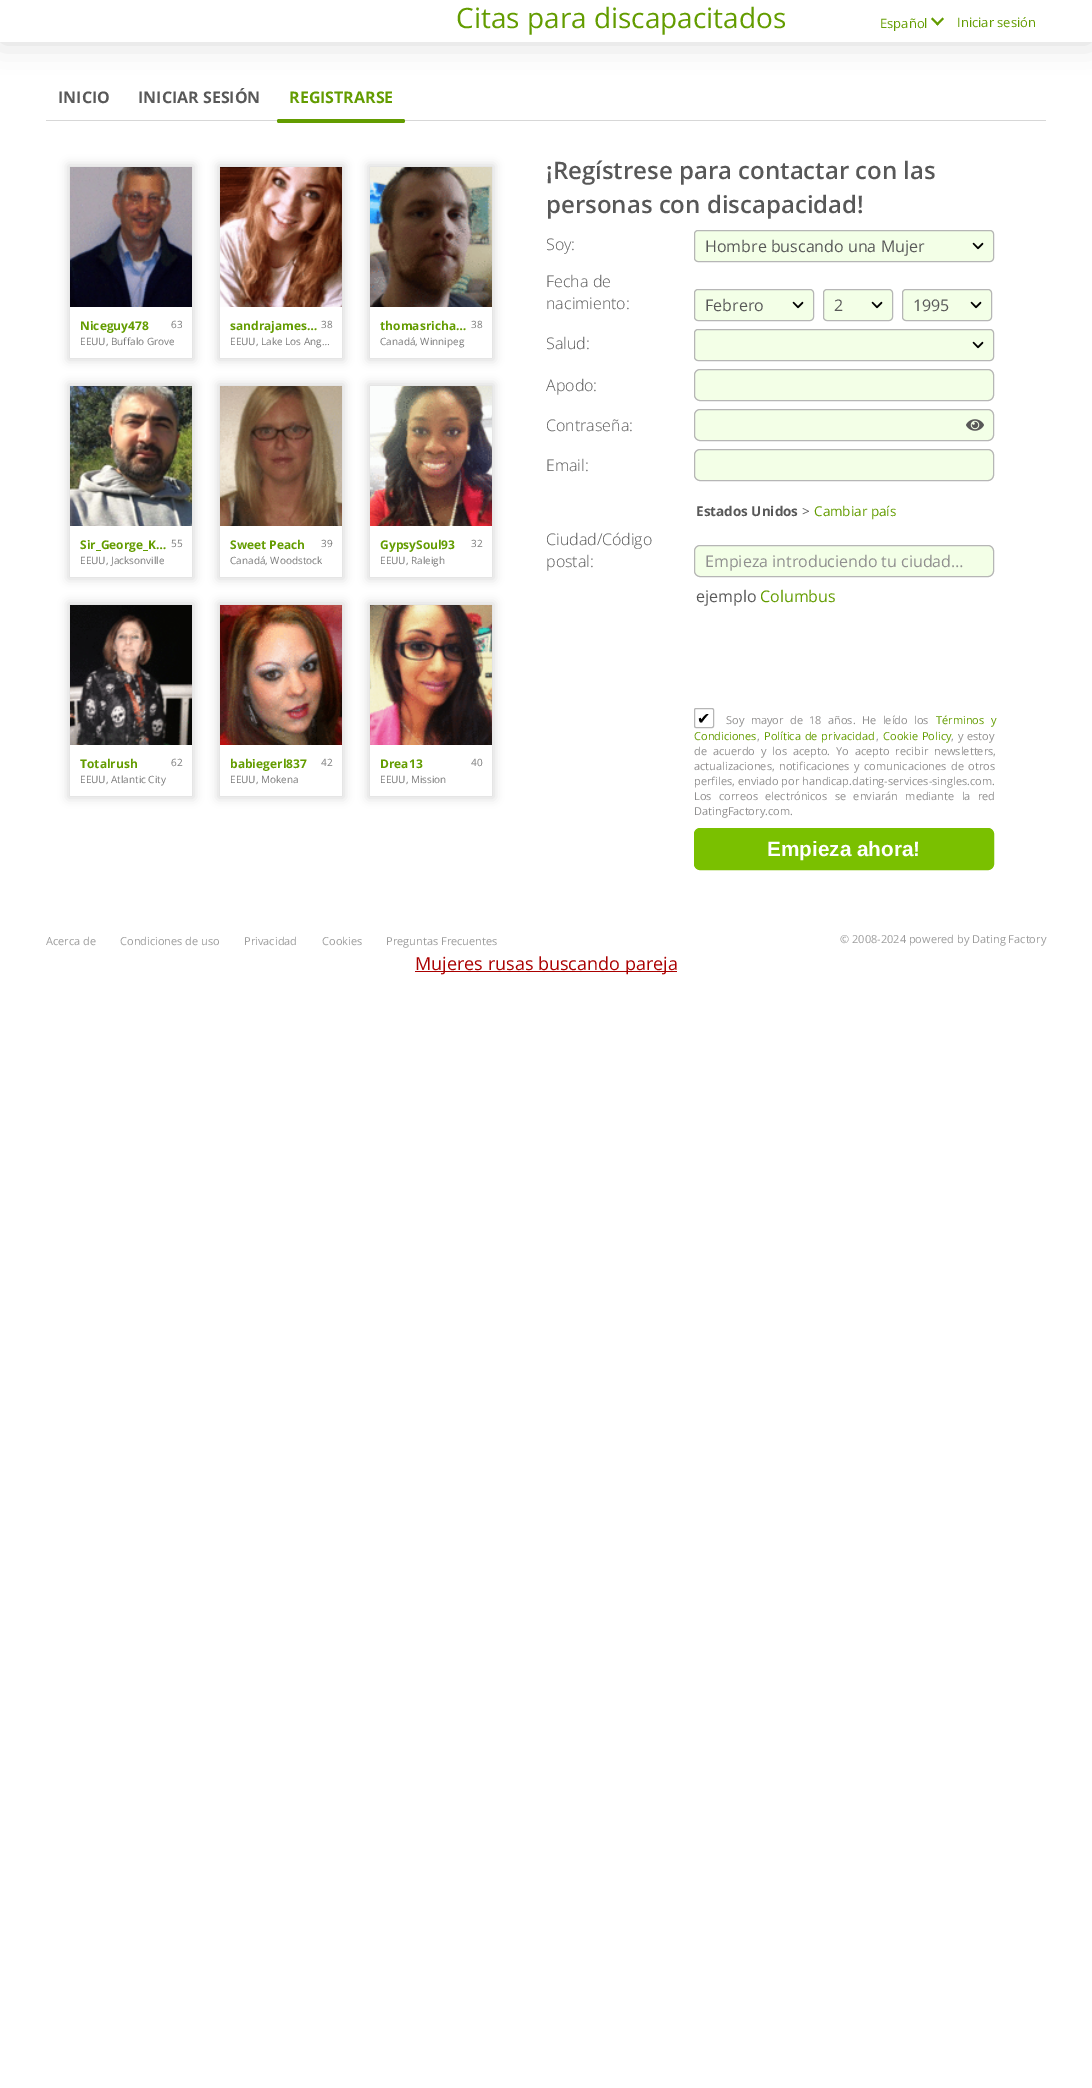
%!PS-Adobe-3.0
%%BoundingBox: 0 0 1092 2088
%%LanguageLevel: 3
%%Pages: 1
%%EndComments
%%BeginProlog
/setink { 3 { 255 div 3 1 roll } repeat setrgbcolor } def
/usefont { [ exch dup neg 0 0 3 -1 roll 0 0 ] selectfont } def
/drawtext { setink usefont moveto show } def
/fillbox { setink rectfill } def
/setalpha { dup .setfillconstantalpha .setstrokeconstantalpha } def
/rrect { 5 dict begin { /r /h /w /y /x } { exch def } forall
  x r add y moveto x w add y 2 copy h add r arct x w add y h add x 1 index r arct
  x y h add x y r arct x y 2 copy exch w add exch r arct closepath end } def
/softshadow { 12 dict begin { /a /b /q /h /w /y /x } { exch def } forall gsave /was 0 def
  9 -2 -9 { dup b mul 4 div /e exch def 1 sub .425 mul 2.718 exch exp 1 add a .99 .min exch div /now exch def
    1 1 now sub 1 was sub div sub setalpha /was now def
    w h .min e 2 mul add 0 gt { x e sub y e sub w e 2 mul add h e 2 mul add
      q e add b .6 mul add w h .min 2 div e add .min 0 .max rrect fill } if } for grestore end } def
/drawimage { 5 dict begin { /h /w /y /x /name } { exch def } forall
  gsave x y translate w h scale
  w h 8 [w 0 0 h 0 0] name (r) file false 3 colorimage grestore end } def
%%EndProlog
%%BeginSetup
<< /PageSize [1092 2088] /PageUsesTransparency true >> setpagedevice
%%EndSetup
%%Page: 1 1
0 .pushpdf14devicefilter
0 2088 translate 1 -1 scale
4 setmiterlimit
0 0 1092 2088 255 255 255 fillbox
gsave
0 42 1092 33 rectclip
215 215 215 setink
0 0 1092 42 0 16 1 softshadow
grestore
(Citas para discapacitados) 456 28 /OpenSans-Regular 28 99 156 0 drawtext
(Español) 880 28 /OpenSans-Regular 13 99 156 0 drawtext
942.5 17.5 moveto 944 19 lineto 937.5 25.5 lineto 936 24 lineto closepath fill
932.5 17.5 moveto 939 24 lineto 937.5 25.5 lineto 931 19 lineto closepath fill
(Iniciar sesión) 957 27 /OpenSans-Regular 13 99 156 0 drawtext
46 120 1000 1 215 215 215 fillbox
(INICIO) 58 103 /OpenSans-Bold 16 88 88 88 drawtext
(INICIAR SESIÓN) 138 103 /OpenSans-Bold 16 88 88 88 drawtext
(REGISTRARSE) 289 103 /OpenSans-Bold 16 99 156 0 drawtext
277 119 128 4 2 rrect fill
gsave
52 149 moveto 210 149 lineto 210 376 lineto 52 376 lineto closepath 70 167 moveto 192 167 lineto 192 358 lineto 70 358 lineto closepath eoclip newpath
215 215 215 setink
68 165 126 195 0 5 1 softshadow
grestore
(assets/img1.rgb) 70 167 122 140 drawimage
(Niceguy478) 80 330 /OpenSans-Bold 12 99 156 0 drawtext
(63) 171 328 /OpenSans-Regular 10 121 121 121 drawtext
(EEUU, Buffalo Grove) 80 345 /OpenSans-Regular 10 121 121 121 drawtext
gsave
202 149 moveto 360 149 lineto 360 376 lineto 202 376 lineto closepath 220 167 moveto 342 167 lineto 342 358 lineto 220 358 lineto closepath eoclip newpath
215 215 215 setink
218 165 126 195 0 5 1 softshadow
grestore
(assets/img2.rgb) 220 167 122 140 drawimage
(sandrajames…) 230 330 /OpenSans-Bold 12 99 156 0 drawtext
(38) 321 328 /OpenSans-Regular 10 121 121 121 drawtext
(EEUU, Lake Los Ang…) 230 345 /OpenSans-Regular 10 121 121 121 drawtext
gsave
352 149 moveto 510 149 lineto 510 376 lineto 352 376 lineto closepath 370 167 moveto 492 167 lineto 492 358 lineto 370 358 lineto closepath eoclip newpath
215 215 215 setink
368 165 126 195 0 5 1 softshadow
grestore
(assets/img3.rgb) 370 167 122 140 drawimage
(thomasricha…) 380 330 /OpenSans-Bold 12 99 156 0 drawtext
(38) 471 328 /OpenSans-Regular 10 121 121 121 drawtext
(Canadá, Winnipeg) 380 345 /OpenSans-Regular 10 121 121 121 drawtext
gsave
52 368 moveto 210 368 lineto 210 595 lineto 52 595 lineto closepath 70 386 moveto 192 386 lineto 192 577 lineto 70 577 lineto closepath eoclip newpath
215 215 215 setink
68 384 126 195 0 5 1 softshadow
grestore
(assets/img4.rgb) 70 386 122 140 drawimage
(Sir_George_K…) 80 549 /OpenSans-Bold 12 99 156 0 drawtext
(55) 171 547 /OpenSans-Regular 10 121 121 121 drawtext
(EEUU, Jacksonville) 80 564 /OpenSans-Regular 10 121 121 121 drawtext
gsave
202 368 moveto 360 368 lineto 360 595 lineto 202 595 lineto closepath 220 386 moveto 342 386 lineto 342 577 lineto 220 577 lineto closepath eoclip newpath
215 215 215 setink
218 384 126 195 0 5 1 softshadow
grestore
(assets/img5.rgb) 220 386 122 140 drawimage
(Sweet Peach) 230 549 /OpenSans-Bold 12 99 156 0 drawtext
(39) 321 547 /OpenSans-Regular 10 121 121 121 drawtext
(Canadá, Woodstock) 230 564 /OpenSans-Regular 10 121 121 121 drawtext
gsave
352 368 moveto 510 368 lineto 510 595 lineto 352 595 lineto closepath 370 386 moveto 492 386 lineto 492 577 lineto 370 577 lineto closepath eoclip newpath
215 215 215 setink
368 384 126 195 0 5 1 softshadow
grestore
(assets/img6.rgb) 370 386 122 140 drawimage
(GypsySoul93) 380 549 /OpenSans-Bold 12 99 156 0 drawtext
(32) 471 547 /OpenSans-Regular 10 121 121 121 drawtext
(EEUU, Raleigh) 380 564 /OpenSans-Regular 10 121 121 121 drawtext
gsave
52 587 moveto 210 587 lineto 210 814 lineto 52 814 lineto closepath 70 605 moveto 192 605 lineto 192 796 lineto 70 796 lineto closepath eoclip newpath
215 215 215 setink
68 603 126 195 0 5 1 softshadow
grestore
(assets/img7.rgb) 70 605 122 140 drawimage
(Totalrush) 80 768 /OpenSans-Bold 12 99 156 0 drawtext
(62) 171 766 /OpenSans-Regular 10 121 121 121 drawtext
(EEUU, Atlantic City) 80 783 /OpenSans-Regular 10 121 121 121 drawtext
gsave
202 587 moveto 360 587 lineto 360 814 lineto 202 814 lineto closepath 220 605 moveto 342 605 lineto 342 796 lineto 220 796 lineto closepath eoclip newpath
215 215 215 setink
218 603 126 195 0 5 1 softshadow
grestore
(assets/img8.rgb) 220 605 122 140 drawimage
(babiegerl837) 230 768 /OpenSans-Bold 12 99 156 0 drawtext
(42) 321 766 /OpenSans-Regular 10 121 121 121 drawtext
(EEUU, Mokena) 230 783 /OpenSans-Regular 10 121 121 121 drawtext
gsave
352 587 moveto 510 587 lineto 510 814 lineto 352 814 lineto closepath 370 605 moveto 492 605 lineto 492 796 lineto 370 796 lineto closepath eoclip newpath
215 215 215 setink
368 603 126 195 0 5 1 softshadow
grestore
(assets/img9.rgb) 370 605 122 140 drawimage
(Drea13) 380 768 /OpenSans-Bold 12 99 156 0 drawtext
(40) 471 766 /OpenSans-Regular 10 121 121 121 drawtext
(EEUU, Mission) 380 783 /OpenSans-Regular 10 121 121 121 drawtext
(¡Regístrese para contactar con las) 546 179 /OpenSans-SemiBold 24 88 88 88 drawtext
(personas con discapacidad!) 546 213 /OpenSans-SemiBold 24 88 88 88 drawtext
(Soy:) 546 250 /OpenSans-Light 16 88 88 88 drawtext
243 255 231 setink
694 230 300 32 4 rrect fill
(assets/img10.rgb) 972 242 12 8 drawimage
182 182 182 setink
694.5 230.5 299 31 3.5 rrect stroke
(Hombre buscando una Mujer) 705 252 /OpenSans-Regular 16 88 88 88 drawtext
(Fecha de) 546 287 /OpenSans-Light 16 88 88 88 drawtext
(nacimiento:) 546 309 /OpenSans-Light 16 88 88 88 drawtext
243 255 231 setink
694 289 120 32 4 rrect fill
(assets/img10.rgb) 792 301 12 8 drawimage
182 182 182 setink
694.5 289.5 119 31 3.5 rrect stroke
(Febrero) 705 311 /OpenSans-Regular 16 88 88 88 drawtext
243 255 231 setink
823 289 70 32 4 rrect fill
(assets/img10.rgb) 871 301 12 8 drawimage
182 182 182 setink
823.5 289.5 69 31 3.5 rrect stroke
(2) 834 311 /OpenSans-Regular 16 88 88 88 drawtext
243 255 231 setink
902 289 90 32 4 rrect fill
(assets/img10.rgb) 970 301 12 8 drawimage
182 182 182 setink
902.5 289.5 89 31 3.5 rrect stroke
(1995) 913 311 /OpenSans-Regular 16 88 88 88 drawtext
(Salud:) 546 349 /OpenSans-Light 16 88 88 88 drawtext
243 255 231 setink
694 329 300 32 4 rrect fill
(assets/img10.rgb) 972 341 12 8 drawimage
182 182 182 setink
694.5 329.5 299 31 3.5 rrect stroke
(Apodo:) 546 391 /OpenSans-Light 16 88 88 88 drawtext
243 255 231 setink
694.5 369.5 299 31 5.5 rrect gsave fill grestore
182 182 182 setink
stroke
(Сontraseña:) 546 431 /OpenSans-Light 16 88 88 88 drawtext
243 255 231 setink
694.5 409.5 299 31 5.5 rrect gsave fill grestore
182 182 182 setink
stroke
(assets/img11.rgb) 966 419 18 12 drawimage
(Email:) 546 471 /OpenSans-Light 16 88 88 88 drawtext
243 255 231 setink
694.5 449.5 299 31 5.5 rrect gsave fill grestore
182 182 182 setink
stroke
(Estados Unidos) 696 516 /OpenSans-Bold 13.5 88 88 88 drawtext
(>) 802 516 /OpenSans-Regular 13.5 88 88 88 drawtext
(Cambiar país) 814 516 /OpenSans-Regular 13.5 99 156 0 drawtext
(Ciudad/Código) 546 545 /OpenSans-Light 16 88 88 88 drawtext
(postal:) 546 567 /OpenSans-Light 16 88 88 88 drawtext
243 255 231 setink
694.5 545.5 299 31 5.5 rrect gsave fill grestore
182 182 182 setink
stroke
(Empieza introduciendo tu ciudad…) 705 567 /OpenSans-Regular 16 144 143 143 drawtext
(ejemplo) 696 602 /OpenSans-Regular 16 88 88 88 drawtext
(Columbus) 760 602 /OpenSans-Regular 16 99 156 0 drawtext
182 182 182 setink
694.5 708.5 19 19 1.5 rrect stroke
(✔) 697 724 /DejaVuSans-Regular 16 0 0 0 drawtext
/OpenSans-Regular 11 usefont
144 143 143 setink
726 724 moveto 3.5 0 32 (Soy mayor de 18 años. He leído los) widthshow
99 156 0 setink
936 724 moveto 3.5 0 32 (Términos y) widthshow
(Condiciones) 694 740 /OpenSans-Regular 11 99 156 0 drawtext
(,) 757 740 /OpenSans-Regular 11 144 143 143 drawtext
99 156 0 setink
764 740 moveto 1 0 32 (Política de privacidad) widthshow
(,) 876 740 /OpenSans-Regular 11 144 143 143 drawtext
99 156 0 setink
883 740 moveto 1 0 32 (Cookie Policy) widthshow
144 143 143 setink
951 740 moveto 1 0 32 (, y estoy) widthshow
694 755 moveto 3 0 32 (de acuerdo y los acepto. Yo acepto recibir newsletters,) widthshow
694 770 moveto 1.5 0 32 (actualizaciones, notificaciones y comunicaciones de otros) widthshow
(perfiles, enviado por handicap.dating-services-singles.com.) 694 785 /OpenSans-Regular 11 144 143 143 drawtext
694 800 moveto 4.5 0 32 (Los correos electrónicos se enviarán mediante la red) widthshow
(DatingFactory.com.) 694 815 /OpenSans-Regular 11 144 143 143 drawtext
122 192 0 setink
694.5 828.5 299 41 5.5 rrect gsave fill grestore
stroke
(Empieza ahora!) 767 856 /LiberationSans-Bold 20.75 255 255 255 drawtext
(Acerca de) 46 945 /OpenSans-Regular 11 156 156 156 drawtext
(Condiciones de uso) 120 945 /OpenSans-Regular 11 156 156 156 drawtext
(Privacidad) 244 945 /OpenSans-Regular 11 156 156 156 drawtext
(Cookies) 322 945 /OpenSans-Regular 11 156 156 156 drawtext
(Preguntas Frecuentes) 386 945 /OpenSans-Regular 11 156 156 156 drawtext
(© 2008-2024 powered by Dating Factory) 840 943 /OpenSans-Regular 11 156 156 156 drawtext
415 971 262 1 170 0 0 fillbox
(Mujeres rusas buscando pareja) 415 970 /OpenSans-Regular 18 170 0 0 drawtext
.poppdf14devicefilter showpage
%%EOF
